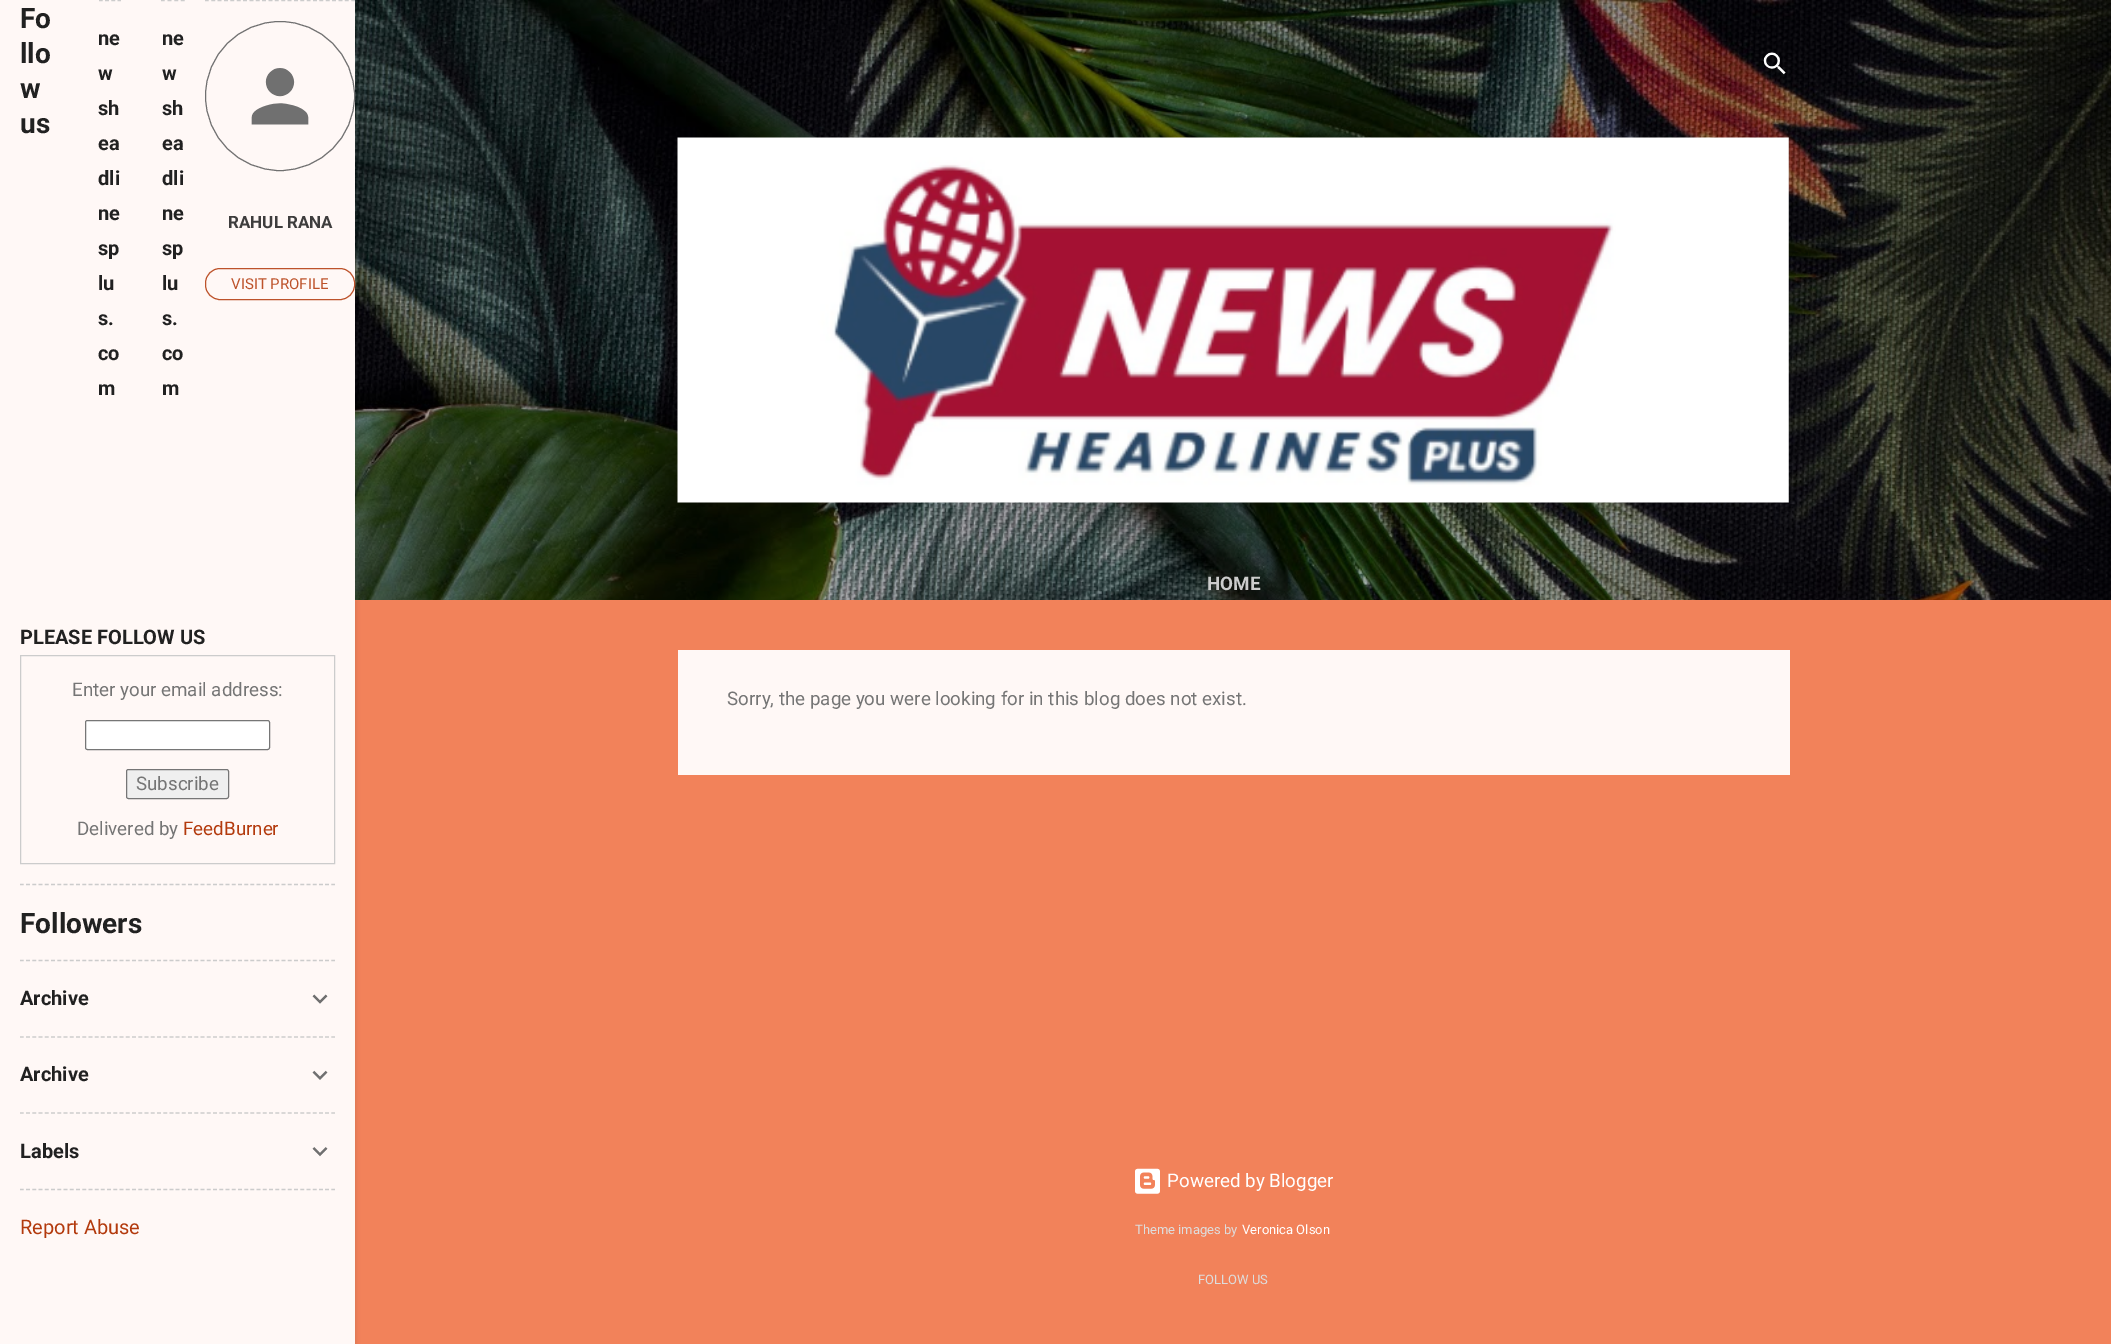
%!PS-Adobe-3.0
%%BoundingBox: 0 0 2111 1344
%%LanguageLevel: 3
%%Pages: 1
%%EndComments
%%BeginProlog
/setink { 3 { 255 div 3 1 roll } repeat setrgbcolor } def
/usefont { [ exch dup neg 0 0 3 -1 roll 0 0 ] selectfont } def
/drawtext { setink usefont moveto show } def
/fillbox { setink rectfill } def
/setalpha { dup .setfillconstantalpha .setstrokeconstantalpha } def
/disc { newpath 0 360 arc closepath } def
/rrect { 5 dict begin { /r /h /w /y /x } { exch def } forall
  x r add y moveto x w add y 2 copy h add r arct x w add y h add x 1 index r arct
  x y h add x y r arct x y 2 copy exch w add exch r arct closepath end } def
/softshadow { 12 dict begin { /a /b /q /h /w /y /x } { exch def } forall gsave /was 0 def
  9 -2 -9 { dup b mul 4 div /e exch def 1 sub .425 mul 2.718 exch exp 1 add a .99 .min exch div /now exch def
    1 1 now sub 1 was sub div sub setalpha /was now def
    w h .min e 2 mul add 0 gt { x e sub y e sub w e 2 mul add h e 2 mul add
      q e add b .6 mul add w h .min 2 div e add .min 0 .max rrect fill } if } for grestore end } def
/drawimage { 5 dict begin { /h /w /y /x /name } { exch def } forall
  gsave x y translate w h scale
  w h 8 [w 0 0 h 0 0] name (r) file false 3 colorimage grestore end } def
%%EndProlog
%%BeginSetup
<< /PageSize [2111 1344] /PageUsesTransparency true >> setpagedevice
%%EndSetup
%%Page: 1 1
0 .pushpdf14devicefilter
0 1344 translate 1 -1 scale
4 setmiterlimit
0 0 2111 1344 242 130 90 fillbox
(assets/img5.rgb) 355 0 1756 600 drawimage
0 0 0 setink
1 601 355 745 0 2 0.1 softshadow
0 0 355 1344 255 248 246 fillbox
(Fo) 20 28 /Roboto-Bold 28 33 33 33 drawtext
(llo) 20 63 /Roboto-Bold 28 33 33 33 drawtext
(w) 20 98 /Roboto-Bold 28 33 33 33 drawtext
(us) 20 133 /Roboto-Bold 28 33 33 33 drawtext
204 204 204 setink
1.2 setlinewidth
[3.75 2.5] 0 setdash
99 0.5 moveto 121 0.5 lineto stroke
(ne) 98 45 /Roboto-Bold 20 33 33 33 drawtext
(w) 98 80 /Roboto-Bold 20 33 33 33 drawtext
(sh) 98 115 /Roboto-Bold 20 33 33 33 drawtext
(ea) 98 150 /Roboto-Bold 20 33 33 33 drawtext
(dli) 98 185 /Roboto-Bold 20 33 33 33 drawtext
(ne) 98 220 /Roboto-Bold 20 33 33 33 drawtext
(sp) 98 255 /Roboto-Bold 20 33 33 33 drawtext
(lu) 98 290 /Roboto-Bold 20 33 33 33 drawtext
(s.) 98 325 /Roboto-Bold 20 33 33 33 drawtext
(co) 98 360 /Roboto-Bold 20 33 33 33 drawtext
(m) 98 395 /Roboto-Bold 20 33 33 33 drawtext
204 204 204 setink
[3.75 2.91] 0 setdash
161 0.5 moveto 185 0.5 lineto stroke
(ne) 162 45 /Roboto-Bold 20 33 33 33 drawtext
(w) 162 80 /Roboto-Bold 20 33 33 33 drawtext
(sh) 162 115 /Roboto-Bold 20 33 33 33 drawtext
(ea) 162 150 /Roboto-Bold 20 33 33 33 drawtext
(dli) 162 185 /Roboto-Bold 20 33 33 33 drawtext
(ne) 162 220 /Roboto-Bold 20 33 33 33 drawtext
(sp) 162 255 /Roboto-Bold 20 33 33 33 drawtext
(lu) 162 290 /Roboto-Bold 20 33 33 33 drawtext
(s.) 162 325 /Roboto-Bold 20 33 33 33 drawtext
(co) 162 360 /Roboto-Bold 20 33 33 33 drawtext
(m) 162 395 /Roboto-Bold 20 33 33 33 drawtext
204 204 204 setink
[3.75 2.61] 0 setdash
205 0.5 moveto 355 0.5 lineto stroke
112 112 112 setink
1 setlinewidth
[] 0 setdash
280 96 74.5 disc stroke
(assets/img1.rgb) 251 68 58 57 drawimage
(RAHUL RANA) 228 228 /Roboto-Bold 17 62 61 61 drawtext
189 83 43 setink
205.5 268.5 149 31 14.5 rrect stroke
(VISIT PROFILE) 231 289 /Roboto-Regular 15 189 83 43 drawtext
(PLEASE FOLLOW US) 20 644 /Roboto-Bold 20 33 33 33 drawtext
204 204 204 setink
20.5 655.5 314 208 rectstroke
(Enter your email address:) 72 696 /Roboto-Regular 18.75 117 117 117 drawtext
255 255 255 setink
85.5 720.5 184 29 2 rrect gsave fill grestore
118 118 118 setink
stroke
239 239 239 setink
126.5 769.5 102 29 2 rrect gsave fill grestore
118 118 118 setink
stroke
(Subscribe) 136 790 /Roboto-Regular 18.75 117 117 117 drawtext
(Delivered by) 77 835 /Roboto-Regular 18.75 117 117 117 drawtext
(FeedBurner) 183 835 /Roboto-Regular 18.75 179 58 13 drawtext
204 204 204 setink
1.2 setlinewidth
[3.75 2.48] 0 setdash
20 884.5 moveto 335 884.5 lineto stroke
(Followers) 20 933 /Roboto-Bold 28 33 33 33 drawtext
204 204 204 setink
20 960.5 moveto 335 960.5 lineto stroke
(Archive) 20 1005 /Roboto-Bold 20 33 33 33 drawtext
(assets/img2.rgb) 312 994 16 10 drawimage
204 204 204 setink
20 1037 moveto 335 1037 lineto stroke
(Archive) 20 1081 /Roboto-Bold 20 33 33 33 drawtext
(assets/img3.rgb) 312 1070 16 10 drawimage
204 204 204 setink
20 1113 moveto 335 1113 lineto stroke
(Labels) 20 1158 /Roboto-Bold 20 33 33 33 drawtext
(assets/img4.rgb) 312 1147 16 10 drawimage
204 204 204 setink
20 1189.5 moveto 335 1189.5 lineto stroke
(Report Abuse) 20 1234 /Roboto-Regular 20 179 58 13 drawtext
(assets/img6.rgb) 1763 52 23 23 drawimage
(assets/img7.rgb) 677 137 1112 366 drawimage
(HOME) 1207 590 /Roboto-Bold 18.75 204 204 204 drawtext
678 650 1112 125 255 248 246 fillbox
(Sorry, the page you were looking for in this blog does not exist.) 727 705 /Roboto-Regular 18.75 117 117 117 drawtext
(assets/img8.rgb) 1135 1168 25 26 drawimage
(Powered by Blogger) 1167 1187 /Roboto-Regular 18.75 255 255 255 drawtext
(Theme images by) 1135 1234 /Roboto-Regular 13 221 221 221 drawtext
(Veronica Olson) 1242 1234 /Roboto-Regular 13 255 255 255 drawtext
(FOLLOW US) 1198 1284 /Roboto-Regular 13 221 221 221 drawtext
.poppdf14devicefilter showpage
%%EOF
